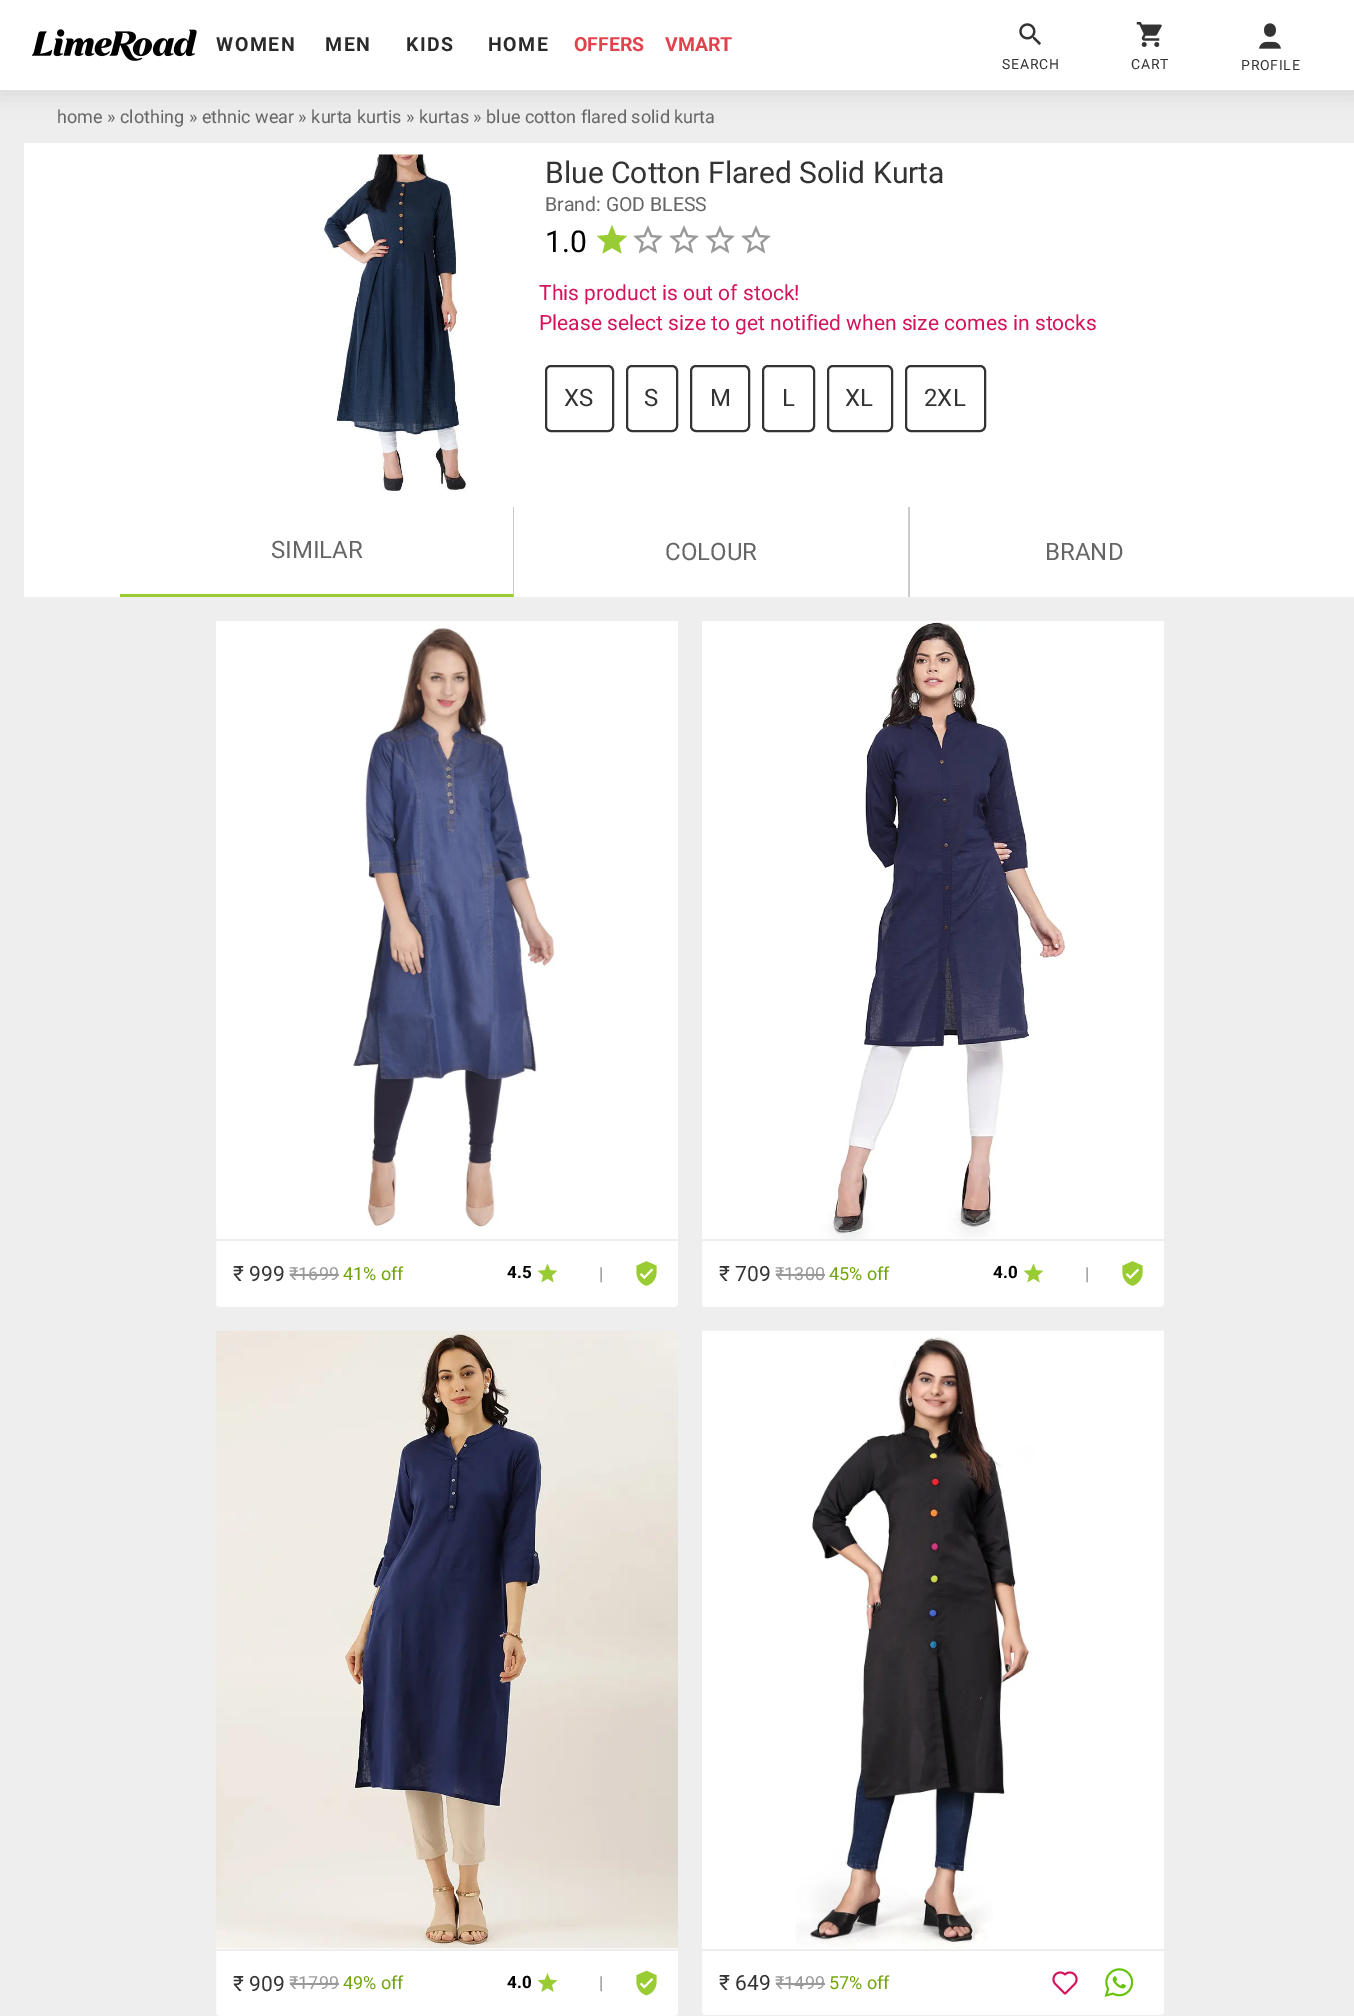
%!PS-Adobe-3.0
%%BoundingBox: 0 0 1354 2016
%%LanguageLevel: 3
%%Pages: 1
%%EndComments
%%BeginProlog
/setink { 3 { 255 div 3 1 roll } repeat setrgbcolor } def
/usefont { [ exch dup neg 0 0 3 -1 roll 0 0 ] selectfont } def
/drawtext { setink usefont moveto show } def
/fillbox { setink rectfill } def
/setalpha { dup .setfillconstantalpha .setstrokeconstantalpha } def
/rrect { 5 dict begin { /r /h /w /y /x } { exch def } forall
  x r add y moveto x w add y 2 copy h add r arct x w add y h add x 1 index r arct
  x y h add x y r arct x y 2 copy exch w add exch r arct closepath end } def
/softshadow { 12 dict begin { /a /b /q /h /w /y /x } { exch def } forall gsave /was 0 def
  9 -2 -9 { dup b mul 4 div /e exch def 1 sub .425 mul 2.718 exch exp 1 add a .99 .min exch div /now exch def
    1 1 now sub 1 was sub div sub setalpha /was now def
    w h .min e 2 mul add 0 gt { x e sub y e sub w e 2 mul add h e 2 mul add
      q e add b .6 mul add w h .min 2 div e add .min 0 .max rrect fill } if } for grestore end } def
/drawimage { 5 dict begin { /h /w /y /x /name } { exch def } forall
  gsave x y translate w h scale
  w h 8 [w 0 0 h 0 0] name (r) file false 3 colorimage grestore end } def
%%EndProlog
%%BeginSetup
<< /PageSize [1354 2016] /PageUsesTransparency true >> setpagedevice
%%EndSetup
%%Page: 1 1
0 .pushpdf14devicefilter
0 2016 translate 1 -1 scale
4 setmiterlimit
0 0 1354 2016 238 238 238 fillbox
85 85 85 setink
0 3 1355 90 0 12 0.16 softshadow
0 0 1354 90 255 255 255 fillbox
(assets/img1.rgb) 32 29 165 32 drawimage
/Roboto-Bold 19.5 usefont
42 42 42 setink
216 51 moveto 1.5 0 (WOMEN) ashow
325 51 moveto 1.5 0 (MEN) ashow
406 51 moveto 1.5 0 (KIDS) ashow
488 51 moveto 1.5 0 (HOME) ashow
(OFFERS) 574 51 /Roboto-Bold 19.5 226 66 78 drawtext
(VMART) 665 51 /Roboto-Bold 19.5 226 66 78 drawtext
(assets/img2.rgb) 1019 23 22 22 drawimage
/Roboto-Regular 14 usefont
51 51 51 setink
1002 69 moveto 0.75 0 (SEARCH) ashow
(assets/img3.rgb) 1136 22 26 25 drawimage
1131 69 moveto 0.75 0 (CART) ashow
(assets/img4.rgb) 1259 23 22 26 drawimage
1241 70 moveto 0.75 0 (PROFILE) ashow
(home » clothing » ethnic wear » kurta kurtis » kurtas » blue cotton flared solid kurta) 57 123 /Roboto-Regular 18 102 102 102 drawtext
24 143 1330 454 255 255 255 fillbox
(assets/img5.rgb) 320 154 147 338 drawimage
(Blue Cotton Flared Solid Kurta) 545 183 /Roboto-Regular 30 51 51 51 drawtext
(Brand: GOD BLESS) 545 211 /Roboto-Regular 19.5 102 102 102 drawtext
(1.0) 545 252 /Roboto-Regular 30 0 0 0 drawtext
153 204 51 setink
612 248 moveto 621.5 253.5 lineto 619 243 lineto 627 236 lineto 616 235 lineto 612 225 lineto 608 235 lineto 597 236 lineto 605 243 lineto 602.5 253.5 lineto closepath fill
(assets/img6.rgb) 633 225 30 29 drawimage
(assets/img6.rgb) 669 225 30 29 drawimage
(assets/img6.rgb) 705 225 30 29 drawimage
(assets/img6.rgb) 741 225 30 29 drawimage
(This product is out of stock!) 539 300 /Roboto-Regular 21 211 20 90 drawtext
(Please select size to get notified when size comes in stocks) 539 330 /Roboto-Regular 21 211 20 90 drawtext
51 51 51 setink
2 setlinewidth
546 366 67 65 5 rrect stroke
(XS) 564 406 /Roboto-Regular 24 51 51 51 drawtext
627 366 50 65 5 rrect stroke
(S) 644 406 /Roboto-Regular 24 51 51 51 drawtext
691 366 58 65 5 rrect stroke
(M) 710 406 /Roboto-Regular 24 51 51 51 drawtext
763 366 51 65 5 rrect stroke
(L) 782 406 /Roboto-Regular 24 51 51 51 drawtext
828 366 64 65 5 rrect stroke
(XL) 845 406 /Roboto-Regular 24 51 51 51 drawtext
906 366 79 65 5 rrect stroke
(2XL) 924 406 /Roboto-Regular 24 51 51 51 drawtext
204 204 204 setink
514 507 moveto 514 597 lineto 513 594 lineto 513 507 lineto closepath fill
153 204 51 setink
514 597 moveto 120 597 lineto 120 594 lineto 513 594 lineto closepath fill
(SIMILAR) 271 558 /Roboto-Regular 24 102 102 102 drawtext
908 507 2 90 204 204 204 fillbox
(COLOUR) 665 560 /Roboto-Regular 24 102 102 102 drawtext
(BRAND) 1045 560 /Roboto-Regular 24 102 102 102 drawtext
255 255 255 setink
214.5 619.5 465 689 4.5 rrect gsave fill grestore
238 238 238 setink
3 setlinewidth
stroke
(assets/img7.rgb) 216 621 462 606 drawimage
216 1239 462 2 238 238 238 fillbox
(₹ 999) 233 1281 /Roboto-Regular 21 51 51 51 drawtext
(₹1699) 289 1280 /Roboto-Regular 18 153 153 153 drawtext
290 1274 49 2 153 153 153 fillbox
(41% off) 343 1280 /Roboto-Regular 18 111 164 12 drawtext
(4.5) 507 1278 /Roboto-Bold 17 0 0 0 drawtext
(assets/img8.rgb) 537 1263 21 20 drawimage
(|) 599 1280 /Roboto-Regular 18 136 136 136 drawtext
(assets/img9.rgb) 636 1261 21 25 drawimage
255 255 255 setink
700.5 619.5 465 689 4.5 rrect gsave fill grestore
238 238 238 setink
stroke
(assets/img10.rgb) 702 621 462 618 drawimage
702 1239 462 2 238 238 238 fillbox
(₹ 709) 719 1281 /Roboto-Regular 21 51 51 51 drawtext
(₹1300) 775 1280 /Roboto-Regular 18 153 153 153 drawtext
776 1274 49 2 153 153 153 fillbox
(45% off) 829 1280 /Roboto-Regular 18 111 164 12 drawtext
(4.0) 993 1278 /Roboto-Bold 17 0 0 0 drawtext
(assets/img8.rgb) 1023 1263 21 20 drawimage
(|) 1085 1280 /Roboto-Regular 18 136 136 136 drawtext
(assets/img9.rgb) 1122 1261 21 25 drawimage
255 255 255 setink
214.5 1329.5 465 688 4.5 rrect gsave fill grestore
238 238 238 setink
stroke
(assets/img11.rgb) 216 1330 462 619 drawimage
216 1949 462 2 238 238 238 fillbox
(₹ 909) 233 1991 /Roboto-Regular 21 51 51 51 drawtext
(₹1799) 289 1989 /Roboto-Regular 18 153 153 153 drawtext
290 1983 49 2 153 153 153 fillbox
(49% off) 343 1989 /Roboto-Regular 18 111 164 12 drawtext
(4.0) 507 1988 /Roboto-Bold 17 0 0 0 drawtext
(assets/img12.rgb) 537 1973 21 19 drawimage
(|) 599 1989 /Roboto-Regular 18 136 136 136 drawtext
(assets/img13.rgb) 636 1970 21 26 drawimage
255 255 255 setink
700.5 1329.5 465 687 4.5 rrect gsave fill grestore
238 238 238 setink
stroke
(assets/img14.rgb) 702 1330 462 618 drawimage
702 1949 462 2 238 238 238 fillbox
(₹ 649) 719 1990 /Roboto-Regular 21 51 51 51 drawtext
(₹1499) 775 1989 /Roboto-Regular 18 153 153 153 drawtext
776 1983 49 2 153 153 153 fillbox
(57% off) 829 1989 /Roboto-Regular 18 111 164 12 drawtext
(assets/img15.rgb) 1052 1971 26 24 drawimage
(assets/img16.rgb) 1104 1968 29 29 drawimage
.poppdf14devicefilter showpage
%%EOF
